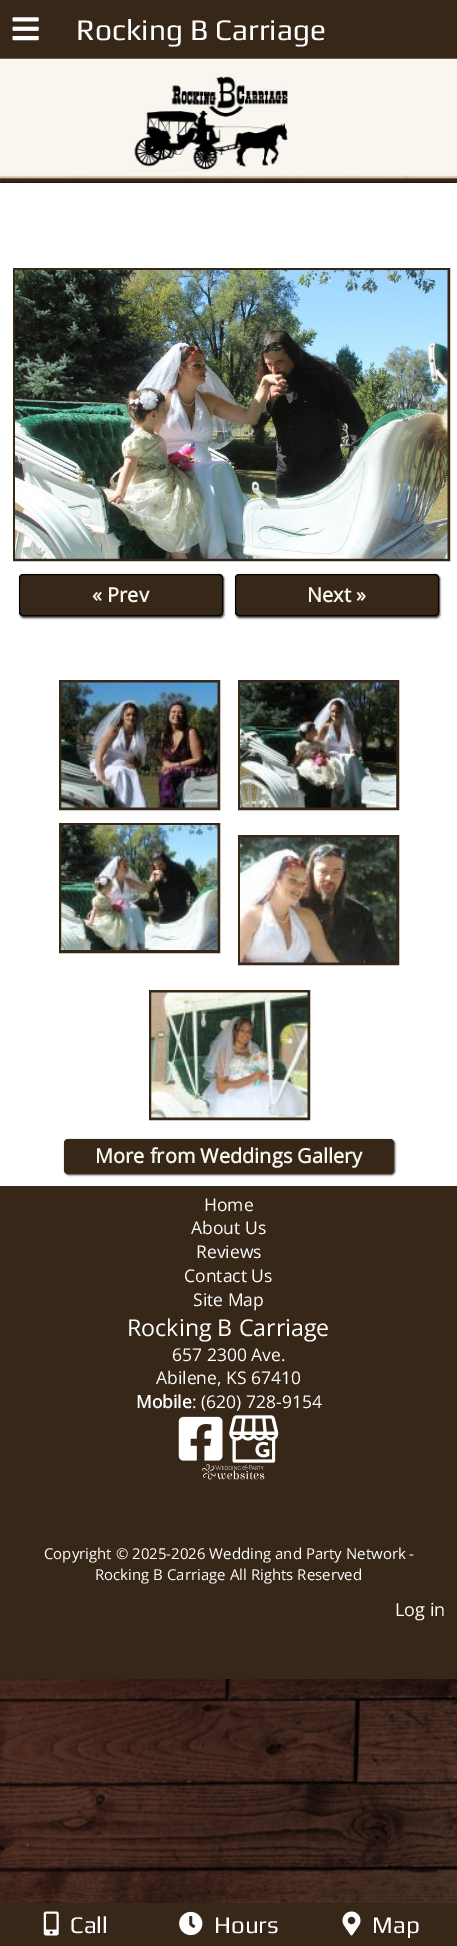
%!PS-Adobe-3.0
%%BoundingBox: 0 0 457 1946
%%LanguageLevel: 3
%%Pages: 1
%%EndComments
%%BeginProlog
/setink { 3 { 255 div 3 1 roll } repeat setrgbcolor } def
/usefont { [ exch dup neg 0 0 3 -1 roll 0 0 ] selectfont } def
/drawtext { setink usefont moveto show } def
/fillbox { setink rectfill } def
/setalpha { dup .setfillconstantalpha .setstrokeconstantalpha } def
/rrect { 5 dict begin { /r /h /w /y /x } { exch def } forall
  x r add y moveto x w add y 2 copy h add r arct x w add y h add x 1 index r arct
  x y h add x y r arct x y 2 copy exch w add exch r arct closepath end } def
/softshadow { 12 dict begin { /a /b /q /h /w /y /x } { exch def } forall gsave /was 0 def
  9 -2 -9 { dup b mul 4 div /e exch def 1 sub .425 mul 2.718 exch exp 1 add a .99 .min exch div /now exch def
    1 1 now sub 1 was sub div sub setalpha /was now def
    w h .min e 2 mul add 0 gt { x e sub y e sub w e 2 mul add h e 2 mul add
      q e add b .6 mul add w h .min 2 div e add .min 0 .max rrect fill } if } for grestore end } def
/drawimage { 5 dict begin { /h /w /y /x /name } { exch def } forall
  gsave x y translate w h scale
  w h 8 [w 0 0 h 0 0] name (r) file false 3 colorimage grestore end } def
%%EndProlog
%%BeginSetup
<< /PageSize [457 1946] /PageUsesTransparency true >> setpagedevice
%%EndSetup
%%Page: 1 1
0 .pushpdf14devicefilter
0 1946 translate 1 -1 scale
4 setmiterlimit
0 0 457 1946 255 255 255 fillbox
0 0 457 59 55 39 24 fillbox
(assets/img1.rgb) 12 17 27 24 drawimage
(Rocking B Carriage) 76 40 /Play-Regular 30 255 255 255 drawtext
0 182 457 1 0 0 0 fillbox
(assets/img2.rgb) 0 58 457 125 drawimage
55 39 24 setink
3 setlinewidth
14.5 269.5 434 290 rectstroke
(assets/img3.rgb) 15 270 433 289 drawimage
51 51 51 setink
20 575 204 43 4 1 1 softshadow
55 39 24 setink
19.5 574.5 203 41 3.5 rrect gsave fill grestore
0 0 0 setink
1 setlinewidth
stroke
(« Prev) 92 602 /OpenSans-Bold 20 249 246 239 drawtext
51 51 51 setink
236 575 204 43 4 1 1 softshadow
55 39 24 setink
235.5 574.5 203 41 3.5 rrect gsave fill grestore
0 0 0 setink
stroke
(Next ») 307 602 /OpenSans-Bold 20 249 246 239 drawtext
55 39 24 setink
3 setlinewidth
60.5 681.5 158 127 rectstroke
(assets/img4.rgb) 61 682 157 126 drawimage
239.5 681.5 158 127 rectstroke
(assets/img5.rgb) 240 682 157 126 drawimage
60.5 824.5 158 127 rectstroke
(assets/img6.rgb) 61 825 157 125 drawimage
239.5 836.5 158 127 rectstroke
(assets/img7.rgb) 240 837 157 126 drawimage
150.5 991.5 158 127 rectstroke
(assets/img8.rgb) 151 992 157 126 drawimage
51 51 51 setink
65 1140 330 35 4 1 1 softshadow
55 39 24 setink
64 1139 330 35 4 rrect fill
(More from Weddings Gallery) 95 1163 /OpenSans-Bold 20 249 246 239 drawtext
0 1186 457 493 55 39 24 fillbox
(Home) 204 1211 /OpenSans-Regular 17.5 255 255 255 drawtext
(About Us) 191 1234 /OpenSans-Regular 17.5 255 255 255 drawtext
(Reviews) 196 1258 /OpenSans-Regular 17.5 255 255 255 drawtext
(Contact Us) 184 1282 /OpenSans-Regular 17.5 255 255 255 drawtext
(Site Map) 193 1306 /OpenSans-Regular 17.5 255 255 255 drawtext
(Rocking B Carriage) 127 1336 /OpenSans-Regular 23.25 255 255 255 drawtext
(657 2300 Ave.) 172 1361 /OpenSans-Regular 17.5 255 255 255 drawtext
(Abilene, KS 67410) 156 1384 /OpenSans-Regular 17.5 255 255 255 drawtext
(Mobile) 136 1408 /OpenSans-Bold 17.5 255 255 255 drawtext
(: \(620\) 728-9154) 192 1408 /OpenSans-Regular 17.5 255 255 255 drawtext
(assets/img9.rgb) 178 1416 45 45 drawimage
(assets/img10.rgb) 229 1415 50 48 drawimage
(assets/img11.rgb) 202 1464 63 16 drawimage
(Copyright © 2025-2026 Wedding and Party Network -) 44 1559 /OpenSans-Regular 15 255 255 255 drawtext
(Rocking B Carriage All Rights Reserved) 95 1580 /OpenSans-Regular 15 255 255 255 drawtext
(Log in) 395 1616 /OpenSans-Regular 18 255 255 255 drawtext
0 1903 457 43 55 39 24 fillbox
(assets/img12.rgb) 43 1911 16 25 drawimage
(Call) 70 1933 /Play-Regular 24 255 255 255 drawtext
(assets/img13.rgb) 179 1911 24 25 drawimage
(Hours) 214 1933 /Play-Regular 24 255 255 255 drawtext
(assets/img14.rgb) 342 1911 19 25 drawimage
(Map) 372 1933 /Play-Regular 24 255 255 255 drawtext
(assets/img15.rgb) 0 1679 457 224 drawimage
.poppdf14devicefilter showpage
%%EOF
